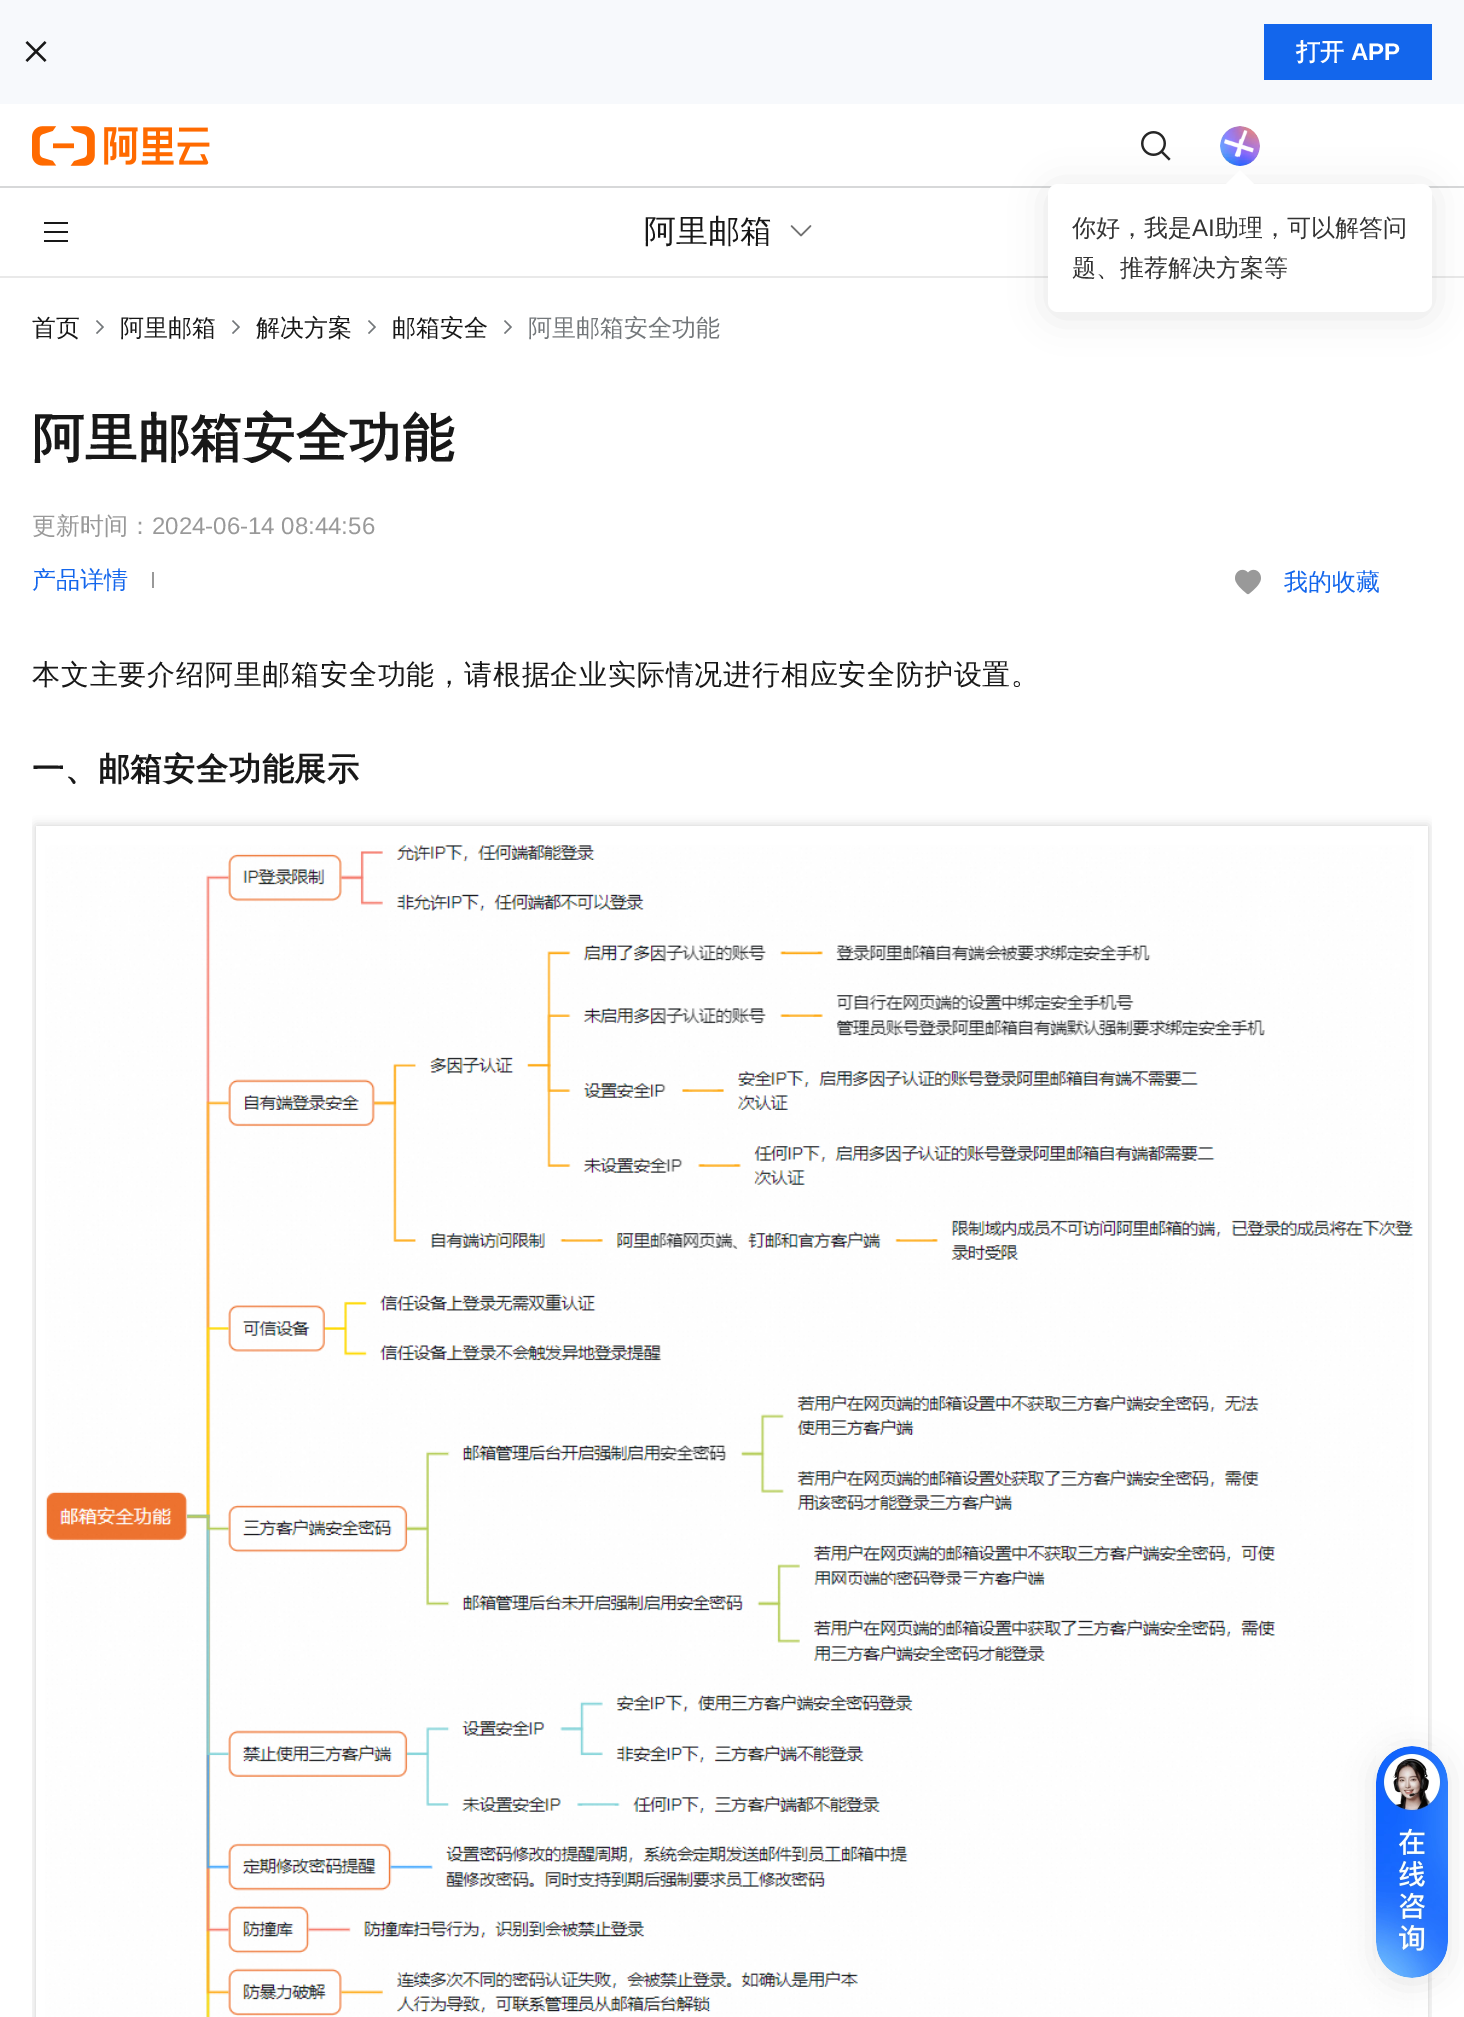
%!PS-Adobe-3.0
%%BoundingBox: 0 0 1464 2017
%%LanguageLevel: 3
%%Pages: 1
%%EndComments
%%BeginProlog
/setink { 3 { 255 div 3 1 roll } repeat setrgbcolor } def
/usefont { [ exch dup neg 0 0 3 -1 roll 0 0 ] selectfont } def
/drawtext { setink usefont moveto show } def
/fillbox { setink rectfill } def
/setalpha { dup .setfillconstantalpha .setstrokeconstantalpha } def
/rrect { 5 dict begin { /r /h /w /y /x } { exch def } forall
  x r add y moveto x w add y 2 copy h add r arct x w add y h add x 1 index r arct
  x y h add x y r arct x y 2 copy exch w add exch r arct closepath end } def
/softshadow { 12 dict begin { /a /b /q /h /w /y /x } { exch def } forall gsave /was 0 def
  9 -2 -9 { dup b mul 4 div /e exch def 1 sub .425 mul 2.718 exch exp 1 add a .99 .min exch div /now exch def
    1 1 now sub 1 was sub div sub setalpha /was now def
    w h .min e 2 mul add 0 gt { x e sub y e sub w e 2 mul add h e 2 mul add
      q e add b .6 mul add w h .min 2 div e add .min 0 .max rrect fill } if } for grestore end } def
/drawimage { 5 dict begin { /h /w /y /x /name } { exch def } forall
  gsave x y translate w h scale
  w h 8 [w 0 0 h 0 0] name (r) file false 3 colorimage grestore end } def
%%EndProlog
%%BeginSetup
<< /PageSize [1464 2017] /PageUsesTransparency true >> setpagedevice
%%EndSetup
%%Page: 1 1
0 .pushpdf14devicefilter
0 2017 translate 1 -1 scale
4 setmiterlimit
0 0 1464 2017 255 255 255 fillbox
0 0 1464 104 247 249 252 fillbox
(assets/img1.rgb) 25 41 22 21 drawimage
1264 24 168 56 19 102 236 fillbox
(打开) 1296 60 /WenQuanYiZenHei-Bold 24 255 255 255 drawtext
(APP) 1351 60 /LiberationSans-Bold 24 255 255 255 drawtext
0 186 1464 2 215 216 217 fillbox
(assets/img2.rgb) 32 126 178 40 drawimage
(assets/img3.rgb) 1141 131 30 30 drawimage
(assets/img4.rgb) 1220 126 40 40 drawimage
(assets/img5.rgb) 1224 130 30 28 drawimage
0 276 1464 2 233 233 233 fillbox
0 0 0 setink
1048 188 384 128 10 18 0.1 softshadow
255 255 255 setink
1048 184 384 128 10 rrect fill
1240 170 moveto 1254 184 lineto 1240 198.5 lineto 1226 184 lineto closepath fill
(你好，我是) 1072 236 /WenQuanYiZenHei-Medium 24 51 51 51 drawtext
(AI) 1192 236 /LiberationSans-Regular 24 51 51 51 drawtext
(助理，可以解答问) 1215 236 /WenQuanYiZenHei-Medium 24 51 51 51 drawtext
(题、推荐解决方案等) 1072 276 /WenQuanYiZenHei-Medium 24 51 51 51 drawtext
44 222 24 2 24 24 24 fillbox
44 231 24 2 24 24 24 fillbox
44 240 24 2 24 24 24 fillbox
(阿里邮箱) 644 242 /WenQuanYiZenHei-Medium 32 24 24 24 drawtext
(assets/img6.rgb) 790 225 22 12 drawimage
(首页) 32 336 /WenQuanYiZenHei-Medium 24 24 24 24 drawtext
(assets/img7.rgb) 96 320 8 14 drawimage
(阿里邮箱) 120 336 /WenQuanYiZenHei-Medium 24 24 24 24 drawtext
(assets/img7.rgb) 232 320 8 14 drawimage
(解决方案) 256 336 /WenQuanYiZenHei-Medium 24 24 24 24 drawtext
(assets/img7.rgb) 368 320 8 14 drawimage
(邮箱安全) 392 336 /WenQuanYiZenHei-Medium 24 24 24 24 drawtext
(assets/img7.rgb) 504 320 8 14 drawimage
(阿里邮箱安全功能) 528 336 /WenQuanYiZenHei-Medium 24 115 119 122 drawtext
/WenQuanYiZenHei-Bold 52 usefont
24 24 24 setink
32 456 moveto 0.8 0 (阿里邮箱安全功能) ashow
(更新时间：) 32 534 /WenQuanYiZenHei-Medium 24 153 153 153 drawtext
(2024-06-14 08:44:56) 152 534 /LiberationSans-Regular 24 153 153 153 drawtext
(产品详情) 32 588 /WenQuanYiZenHei-Medium 24 19 102 236 drawtext
152 572 2 16 153 153 153 fillbox
(assets/img8.rgb) 1235 569 26 26 drawimage
(我的收藏) 1284 590 /WenQuanYiZenHei-Medium 24 19 102 236 drawtext
/WenQuanYiZenHei-Medium 28 usefont
24 24 24 setink
32 684 moveto 0.8 0 (本文主要介绍阿里邮箱安全功能，请根据企业实际情况进行相应安全防护设置。) ashow
/WenQuanYiZenHei-Bold 32 usefont
32 780 moveto 0.8 0 (一、邮箱安全功能展示) ashow
gsave
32 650 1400 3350 rectclip
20 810 moveto 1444 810 lineto 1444 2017 lineto 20 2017 lineto closepath 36 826 moveto 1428 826 lineto 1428 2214 lineto 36 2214 lineto closepath eoclip newpath
204 204 204 setink
36 826 1392 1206 0 5 1 softshadow
grestore
(assets/img9.rgb) 45 845 1369 1172 drawimage
0 0 0 setink
1376 1750 72 232 36 15 0.1 softshadow
(assets/img10.rgb) 1376 1746 72 232 drawimage
.poppdf14devicefilter showpage
%%EOF
